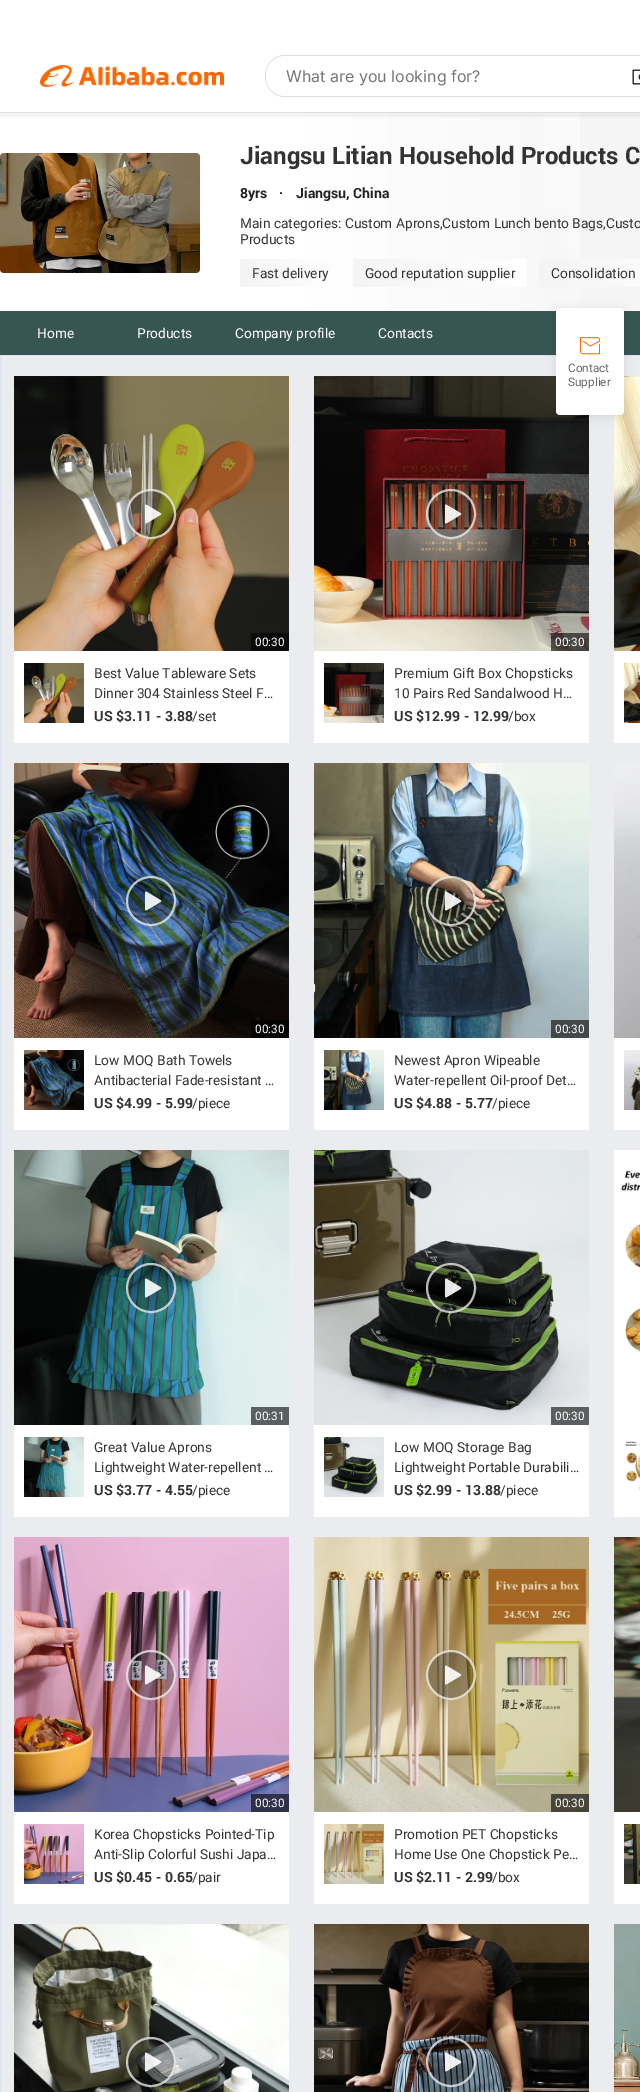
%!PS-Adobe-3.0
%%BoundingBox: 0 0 640 2092
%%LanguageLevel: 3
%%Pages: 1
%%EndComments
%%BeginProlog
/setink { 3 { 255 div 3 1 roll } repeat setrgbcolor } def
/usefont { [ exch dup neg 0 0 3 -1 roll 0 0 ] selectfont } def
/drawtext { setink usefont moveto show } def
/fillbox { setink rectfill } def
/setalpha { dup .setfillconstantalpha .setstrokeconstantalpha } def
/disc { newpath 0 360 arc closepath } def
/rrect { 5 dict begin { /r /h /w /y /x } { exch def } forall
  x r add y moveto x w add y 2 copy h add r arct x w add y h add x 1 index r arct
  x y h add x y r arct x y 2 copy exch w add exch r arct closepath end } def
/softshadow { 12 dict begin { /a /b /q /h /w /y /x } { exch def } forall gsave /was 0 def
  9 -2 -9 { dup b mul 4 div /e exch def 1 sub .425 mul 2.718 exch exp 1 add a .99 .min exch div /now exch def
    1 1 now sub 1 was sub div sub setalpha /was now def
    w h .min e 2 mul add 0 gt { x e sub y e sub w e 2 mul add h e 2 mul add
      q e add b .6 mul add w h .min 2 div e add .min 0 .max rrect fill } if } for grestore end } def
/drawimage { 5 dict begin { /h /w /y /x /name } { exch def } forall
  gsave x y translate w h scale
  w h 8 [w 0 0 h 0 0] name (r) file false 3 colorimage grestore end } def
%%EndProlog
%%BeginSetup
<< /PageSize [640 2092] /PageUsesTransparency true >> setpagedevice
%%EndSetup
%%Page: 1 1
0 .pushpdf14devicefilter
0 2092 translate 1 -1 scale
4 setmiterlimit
0 0 640 2092 255 255 255 fillbox
580 113 60 198 245 245 245 fillbox
(assets/img3.rgb) 0 113 580 198 drawimage
0 0 0 setink
-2 113 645 4 0 1 0.05 softshadow
0 112 640 1 221 221 221 fillbox
(assets/img1.rgb) 40 65 184 22 drawimage
265 55 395 42 20 rrect fill
255 255 255 setink
266 56 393 40 19 rrect fill
(What are you looking for?) 286 82 /Inter-Regular 16 118 118 118 drawtext
(assets/img2.rgb) 632 69 8 16 drawimage
(assets/img4.rgb) 0 153 200 120 drawimage
(Jiangsu Litian Household Products C) 240 164 /Roboto-Bold 24 51 51 51 drawtext
(8yrs) 240 198 /Roboto-Bold 14 34 34 34 drawtext
(·) 279 198 /Roboto-Bold 14 34 34 34 drawtext
(Jiangsu, China) 296 198 /Roboto-Bold 14 34 34 34 drawtext
(Main categories: Custom Aprons,Custom Lunch bento Bags,Custo) 240 228 /Roboto-Regular 14 51 51 51 drawtext
(Products) 240 244 /Roboto-Regular 14 51 51 51 drawtext
gsave 240 259 101 28 4 rrect clip newpath
<< /ShadingType 2 /ColorSpace /DeviceRGB /Coords [341 273 240 273] /Extend [true true] /Function << /FunctionType 2 /Domain [0 1] /C0 [1 1 1] /C1 [0.957 0.957 0.957] /N 1 >> >> shfill grestore
(Fast delivery) 252 278 /Roboto-Regular 14 51 51 51 drawtext
gsave 353 259 174 28 4 rrect clip newpath
<< /ShadingType 2 /ColorSpace /DeviceRGB /Coords [527 273 353 273] /Extend [true true] /Function << /FunctionType 2 /Domain [0 1] /C0 [1 1 1] /C1 [0.957 0.957 0.957] /N 1 >> >> shfill grestore
(Good reputation supplier) 365 278 /Roboto-Regular 14 51 51 51 drawtext
gsave 539 259 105 28 4 rrect clip newpath
<< /ShadingType 2 /ColorSpace /DeviceRGB /Coords [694 273 539 273] /Extend [true true] /Function << /FunctionType 2 /Domain [0 1] /C0 [1 1 1] /C1 [0.957 0.957 0.957] /N 1 >> >> shfill grestore
(Consolidation) 551 278 /Roboto-Regular 14 51 51 51 drawtext
0 311 640 44 55 85 83 fillbox
(Home) 37 338 /Roboto-Regular 14 255 255 255 drawtext
(Products) 137 338 /Roboto-Regular 14 255 255 255 drawtext
(Company profile) 235 338 /Roboto-Regular 14 255 255 255 drawtext
(Contacts) 378 338 /Roboto-Regular 14 255 255 255 drawtext
235 236 240 setink
0.5 355.5 moveto 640.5 355.5 lineto 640.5 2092.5 lineto 0.5 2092.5 lineto closepath gsave fill grestore
219 227 239 setink
stroke
14 651 275 92 255 255 255 fillbox
(assets/img5.rgb) 14 376 275 275 drawimage
0.27 setalpha
0 0 0 setink
151 514 25 disc fill
0.72 setalpha
255 255 255 setink
2 setlinewidth
151 514 24 disc stroke
1 setalpha
(assets/img6.rgb) 145 504 17 20 drawimage
0.6 setalpha
0 0 0 setink
251 633 38 18 1 rrect fill
1 setalpha
(00:30) 255 646 /Roboto-Regular 12 255 255 255 drawtext
(assets/img7.rgb) 24 663 60 60 drawimage
(Best Value Tableware Sets) 94 678 /Roboto-Regular 14 51 51 51 drawtext
(Dinner 304 Stainless Steel F…) 94 698 /Roboto-Regular 14 51 51 51 drawtext
(US $3.11 - 3.88) 94 721 /Roboto-Bold 14 51 51 51 drawtext
(/set) 192 721 /Roboto-Regular 14 51 51 51 drawtext
314 651 275 92 255 255 255 fillbox
(assets/img8.rgb) 314 376 275 275 drawimage
0.27 setalpha
0 0 0 setink
451 514 25 disc fill
0.72 setalpha
255 255 255 setink
451 514 24 disc stroke
1 setalpha
(assets/img9.rgb) 444 504 18 20 drawimage
0.6 setalpha
0 0 0 setink
551 633 38 18 1 rrect fill
1 setalpha
(00:30) 555 646 /Roboto-Regular 12 255 255 255 drawtext
(assets/img10.rgb) 324 663 60 60 drawimage
(Premium Gift Box Chopsticks) 394 678 /Roboto-Regular 14 51 51 51 drawtext
(10 Pairs Red Sandalwood H…) 394 698 /Roboto-Regular 14 51 51 51 drawtext
(US $12.99 - 12.99) 394 721 /Roboto-Bold 14 51 51 51 drawtext
(/box) 508 721 /Roboto-Regular 14 51 51 51 drawtext
614 651 26 92 255 255 255 fillbox
(assets/img11.rgb) 614 376 26 275 drawimage
(assets/img12.rgb) 624 663 16 60 drawimage
14 1038 275 92 255 255 255 fillbox
(assets/img13.rgb) 14 763 275 275 drawimage
0.27 setalpha
0 0 0 setink
151 901 25 disc fill
0.72 setalpha
255 255 255 setink
151 901 24 disc stroke
1 setalpha
(assets/img14.rgb) 144 891 18 20 drawimage
0.6 setalpha
0 0 0 setink
251 1020 38 18 1 rrect fill
1 setalpha
(00:30) 255 1033 /Roboto-Regular 12 255 255 255 drawtext
(assets/img15.rgb) 24 1050 60 60 drawimage
(Low MOQ Bath Towels) 94 1065 /Roboto-Regular 14 51 51 51 drawtext
(Antibacterial Fade-resistant …) 94 1085 /Roboto-Regular 14 51 51 51 drawtext
(US $4.99 - 5.99) 94 1108 /Roboto-Bold 14 51 51 51 drawtext
(/piece) 192 1108 /Roboto-Regular 14 51 51 51 drawtext
314 1038 275 92 255 255 255 fillbox
(assets/img16.rgb) 314 763 275 275 drawimage
0.27 setalpha
0 0 0 setink
451 901 25 disc fill
0.72 setalpha
255 255 255 setink
451 901 24 disc stroke
1 setalpha
(assets/img17.rgb) 444 891 18 20 drawimage
0.6 setalpha
0 0 0 setink
551 1020 38 18 1 rrect fill
1 setalpha
(00:30) 555 1033 /Roboto-Regular 12 255 255 255 drawtext
(assets/img18.rgb) 324 1050 60 60 drawimage
(Newest Apron Wipeable) 394 1065 /Roboto-Regular 14 51 51 51 drawtext
(Water-repellent Oil-proof Det…) 394 1085 /Roboto-Regular 14 51 51 51 drawtext
(US $4.88 - 5.77) 394 1108 /Roboto-Bold 14 51 51 51 drawtext
(/piece) 492 1108 /Roboto-Regular 14 51 51 51 drawtext
614 1038 26 92 255 255 255 fillbox
(assets/img19.rgb) 614 763 26 275 drawimage
(assets/img20.rgb) 624 1050 16 60 drawimage
14 1425 275 92 255 255 255 fillbox
(assets/img21.rgb) 14 1150 275 275 drawimage
0.27 setalpha
0 0 0 setink
151 1288 25 disc fill
0.72 setalpha
255 255 255 setink
151 1288 24 disc stroke
1 setalpha
(assets/img22.rgb) 144 1278 18 20 drawimage
0.6 setalpha
0 0 0 setink
251 1407 38 18 1 rrect fill
1 setalpha
(00:31) 255 1420 /Roboto-Regular 12 255 255 255 drawtext
(assets/img23.rgb) 24 1437 60 60 drawimage
(Great Value Aprons) 94 1452 /Roboto-Regular 14 51 51 51 drawtext
(Lightweight Water-repellent …) 94 1472 /Roboto-Regular 14 51 51 51 drawtext
(US $3.77 - 4.55) 94 1495 /Roboto-Bold 14 51 51 51 drawtext
(/piece) 192 1495 /Roboto-Regular 14 51 51 51 drawtext
314 1425 275 92 255 255 255 fillbox
(assets/img24.rgb) 314 1150 275 275 drawimage
0.27 setalpha
0 0 0 setink
451 1288 25 disc fill
0.72 setalpha
255 255 255 setink
451 1288 24 disc stroke
1 setalpha
(assets/img25.rgb) 444 1278 18 20 drawimage
0.6 setalpha
0 0 0 setink
551 1407 38 18 1 rrect fill
1 setalpha
(00:30) 555 1420 /Roboto-Regular 12 255 255 255 drawtext
(assets/img26.rgb) 324 1437 60 60 drawimage
(Low MOQ Storage Bag) 394 1452 /Roboto-Regular 14 51 51 51 drawtext
(Lightweight Portable Durabili…) 394 1472 /Roboto-Regular 14 51 51 51 drawtext
(US $2.99 - 13.88) 394 1495 /Roboto-Bold 14 51 51 51 drawtext
(/piece) 500 1495 /Roboto-Regular 14 51 51 51 drawtext
614 1150 26 367 255 255 255 fillbox
(assets/img27.rgb) 621 1170 19 182 drawimage
(assets/img28.rgb) 625 1441 15 50 drawimage
14 1812 275 92 255 255 255 fillbox
(assets/img29.rgb) 14 1537 275 275 drawimage
0.27 setalpha
0 0 0 setink
151 1675 25 disc fill
0.72 setalpha
255 255 255 setink
151 1675 24 disc stroke
1 setalpha
(assets/img30.rgb) 144 1665 18 20 drawimage
0.6 setalpha
0 0 0 setink
251 1794 38 18 1 rrect fill
1 setalpha
(00:30) 255 1807 /Roboto-Regular 12 255 255 255 drawtext
(assets/img31.rgb) 24 1824 60 60 drawimage
(Korea Chopsticks Pointed-Tip) 94 1839 /Roboto-Regular 14 51 51 51 drawtext
(Anti-Slip Colorful Sushi Japa…) 94 1859 /Roboto-Regular 14 51 51 51 drawtext
(US $0.45 - 0.65) 94 1882 /Roboto-Bold 14 51 51 51 drawtext
(/pair) 192 1882 /Roboto-Regular 14 51 51 51 drawtext
314 1812 275 92 255 255 255 fillbox
(assets/img32.rgb) 314 1537 275 275 drawimage
0.27 setalpha
0 0 0 setink
451 1675 25 disc fill
0.72 setalpha
255 255 255 setink
451 1675 24 disc stroke
1 setalpha
(assets/img33.rgb) 444 1665 18 20 drawimage
0.6 setalpha
0 0 0 setink
551 1794 38 18 1 rrect fill
1 setalpha
(00:30) 555 1807 /Roboto-Regular 12 255 255 255 drawtext
(assets/img34.rgb) 324 1824 60 60 drawimage
(Promotion PET Chopsticks) 394 1839 /Roboto-Regular 14 51 51 51 drawtext
(Home Use One Chopstick Pe…) 394 1859 /Roboto-Regular 14 51 51 51 drawtext
(US $2.11 - 2.99) 394 1882 /Roboto-Bold 14 51 51 51 drawtext
(/box) 492 1882 /Roboto-Regular 14 51 51 51 drawtext
614 1812 26 92 255 255 255 fillbox
(assets/img35.rgb) 614 1537 26 275 drawimage
(assets/img36.rgb) 624 1824 16 60 drawimage
(assets/img37.rgb) 14 1924 275 168 drawimage
0.27 setalpha
0 0 0 setink
151 2062 25 disc fill
0.72 setalpha
255 255 255 setink
151 2062 24 disc stroke
1 setalpha
(assets/img38.rgb) 144 2052 18 20 drawimage
(assets/img39.rgb) 314 1924 275 168 drawimage
0.27 setalpha
0 0 0 setink
451 2062 25 disc fill
0.72 setalpha
255 255 255 setink
451 2062 24 disc stroke
1 setalpha
(assets/img40.rgb) 444 2052 18 20 drawimage
(assets/img41.rgb) 614 1924 26 168 drawimage
0 0 0 setink
556 310 68 107 4 5 0.1 softshadow
255 255 255 setink
556 308 68 107 4 rrect fill
(assets/img42.rgb) 580 337 20 18 drawimage
(Contact) 568 372 /Roboto-Regular 12 102 102 102 drawtext
(Supplier) 568 386 /Roboto-Regular 12 102 102 102 drawtext
.poppdf14devicefilter showpage
%%EOF
